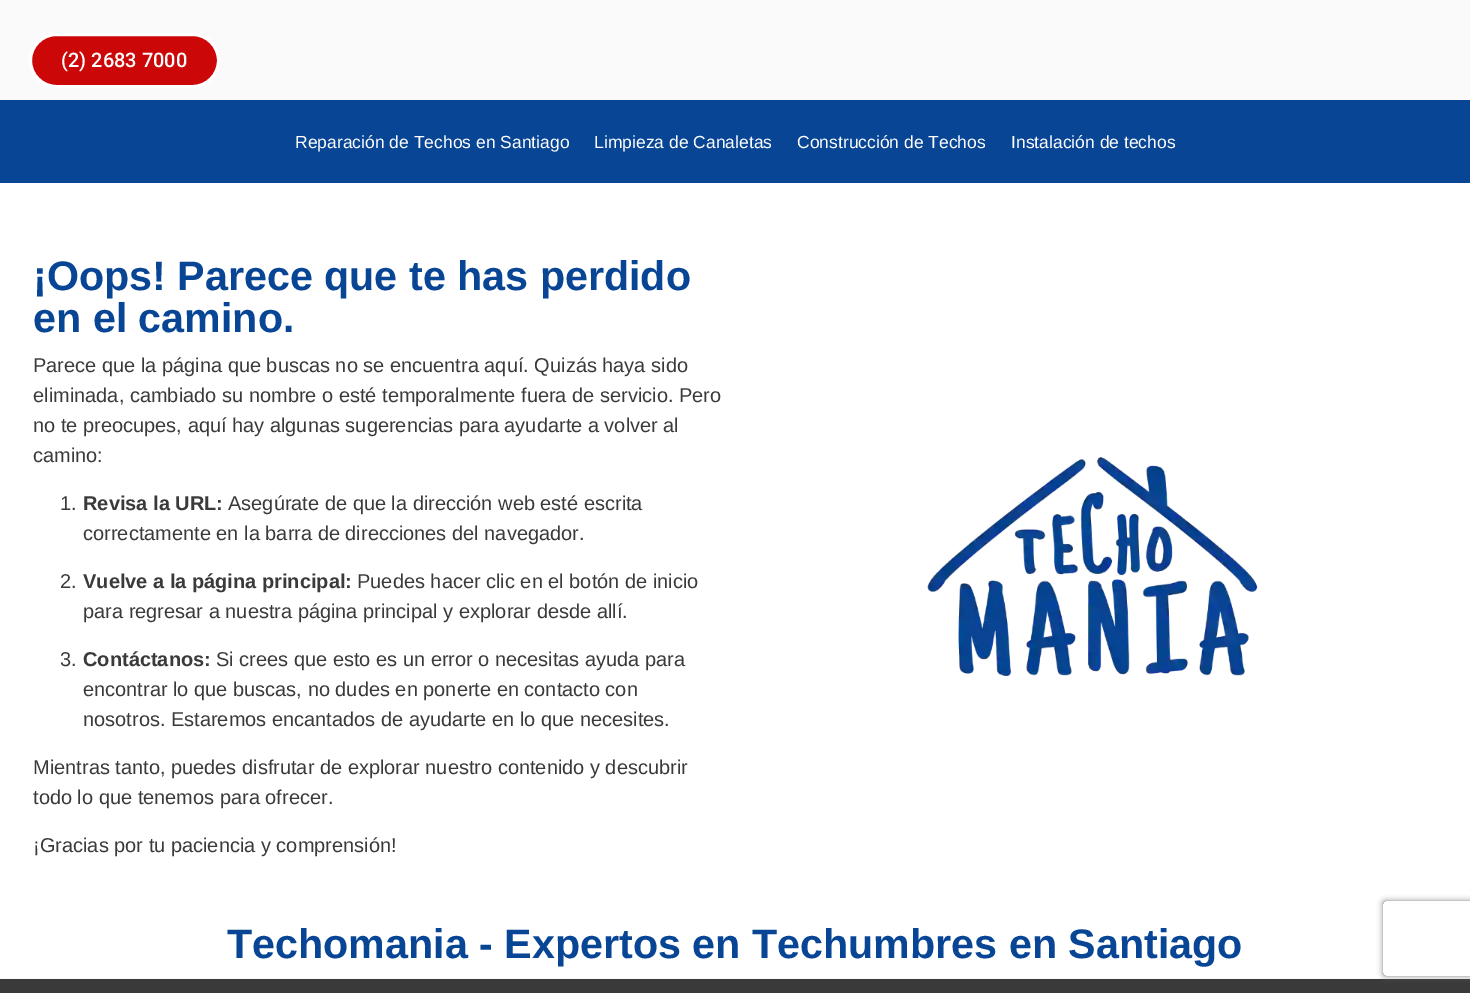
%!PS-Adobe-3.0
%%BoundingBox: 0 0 1470 993
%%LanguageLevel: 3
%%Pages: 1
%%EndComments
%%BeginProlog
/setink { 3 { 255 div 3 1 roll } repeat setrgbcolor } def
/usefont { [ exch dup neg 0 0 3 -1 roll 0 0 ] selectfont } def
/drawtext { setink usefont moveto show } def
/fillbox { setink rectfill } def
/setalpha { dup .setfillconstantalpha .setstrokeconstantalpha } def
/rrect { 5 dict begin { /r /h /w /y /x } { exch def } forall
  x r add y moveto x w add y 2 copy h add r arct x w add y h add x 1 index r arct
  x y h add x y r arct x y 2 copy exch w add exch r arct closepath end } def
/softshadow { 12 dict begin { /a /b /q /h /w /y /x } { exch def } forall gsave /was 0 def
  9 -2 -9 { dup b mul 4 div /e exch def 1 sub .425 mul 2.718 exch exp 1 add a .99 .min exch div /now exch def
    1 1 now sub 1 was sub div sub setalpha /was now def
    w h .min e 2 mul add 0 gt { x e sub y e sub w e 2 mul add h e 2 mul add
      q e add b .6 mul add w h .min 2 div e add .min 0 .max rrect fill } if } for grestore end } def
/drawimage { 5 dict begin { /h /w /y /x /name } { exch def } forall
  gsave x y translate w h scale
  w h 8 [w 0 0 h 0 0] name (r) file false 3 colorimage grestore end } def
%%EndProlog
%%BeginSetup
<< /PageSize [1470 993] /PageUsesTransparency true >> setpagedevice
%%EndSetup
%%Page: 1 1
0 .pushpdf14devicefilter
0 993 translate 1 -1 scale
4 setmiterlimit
0 0 1470 993 255 255 255 fillbox
0 0 1470 100 250 250 250 fillbox
204 7 7 setink
30.5 34.5 188 52 26 rrect gsave fill grestore
255 255 255 setink
3 setlinewidth
stroke
(\(2\) 2683 7000) 61 67 /Roboto-Medium 20 255 255 255 drawtext
0 100 1470 83 8 69 148 fillbox
(Reparación de Techos en Santiago) 295 148 /LiberationSans-Regular 17.5 255 255 255 drawtext
(Limpieza de Canaletas) 594 148 /LiberationSans-Regular 17.5 255 255 255 drawtext
(Construcción de Techos) 797 148 /LiberationSans-Regular 17.5 255 255 255 drawtext
(Instalación de techos) 1011 148 /LiberationSans-Regular 17.5 255 255 255 drawtext
(¡Oops! Parece que te has perdido) 33 290 /LiberationSans-Bold 41.25 8 69 148 drawtext
(en el camino.) 33 332 /LiberationSans-Bold 41.25 8 69 148 drawtext
(Parece que la página que buscas no se encuentra aquí. Quizás haya sido) 33 372 /LiberationSans-Regular 20 58 58 58 drawtext
(eliminada, cambiado su nombre o esté temporalmente fuera de servicio. Pero) 33 402 /LiberationSans-Regular 20 58 58 58 drawtext
(no te preocupes, aquí hay algunas sugerencias para ayudarte a volver al) 33 432 /LiberationSans-Regular 20 58 58 58 drawtext
(camino:) 33 462 /LiberationSans-Regular 20 58 58 58 drawtext
(1.) 60 510 /LiberationSans-Regular 20 58 58 58 drawtext
(Revisa la URL:) 83 510 /LiberationSans-Bold 20 58 58 58 drawtext
(Asegúrate de que la dirección web esté escrita) 228 510 /LiberationSans-Regular 20 58 58 58 drawtext
(correctamente en la barra de direcciones del navegador.) 83 540 /LiberationSans-Regular 20 58 58 58 drawtext
(2.) 60 588 /LiberationSans-Regular 20 58 58 58 drawtext
(Vuelve a la página principal:) 83 588 /LiberationSans-Bold 20 58 58 58 drawtext
(Puedes hacer clic en el botón de inicio) 357 588 /LiberationSans-Regular 20 58 58 58 drawtext
(para regresar a nuestra página principal y explorar desde allí.) 83 618 /LiberationSans-Regular 20 58 58 58 drawtext
(3.) 60 666 /LiberationSans-Regular 20 58 58 58 drawtext
(Contáctanos:) 83 666 /LiberationSans-Bold 20 58 58 58 drawtext
(Si crees que esto es un error o necesitas ayuda para) 216 666 /LiberationSans-Regular 20 58 58 58 drawtext
(encontrar lo que buscas, no dudes en ponerte en contacto con) 83 696 /LiberationSans-Regular 20 58 58 58 drawtext
(nosotros. Estaremos encantados de ayudarte en lo que necesites.) 83 726 /LiberationSans-Regular 20 58 58 58 drawtext
(Mientras tanto, puedes disfrutar de explorar nuestro contenido y descubrir) 33 774 /LiberationSans-Regular 20 58 58 58 drawtext
(todo lo que tenemos para ofrecer.) 33 804 /LiberationSans-Regular 20 58 58 58 drawtext
(¡Gracias por tu paciencia y comprensión!) 33 852 /LiberationSans-Regular 20 58 58 58 drawtext
(assets/img1.rgb) 927 457 331 219 drawimage
(Techomania - Expertos en Techumbres en Santiago) 227 958 /LiberationSans-Bold 41.25 8 69 148 drawtext
0 979 1470 14 58 58 58 fillbox
0 978 1470 1 250 250 250 fillbox
gsave
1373 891 moveto 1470 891 lineto 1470 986 lineto 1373 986 lineto closepath 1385.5 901 moveto 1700.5 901 lineto 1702 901 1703 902 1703 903.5 curveto 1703 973.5 lineto 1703 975 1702 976 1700.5 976 curveto 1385.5 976 lineto 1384 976 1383 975 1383 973.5 curveto 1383 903.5 lineto 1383 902 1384 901 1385.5 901 curveto closepath eoclip newpath
128 128 128 setink
1383 901 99 75 2.5 3 1 softshadow
grestore
.poppdf14devicefilter showpage
%%EOF
